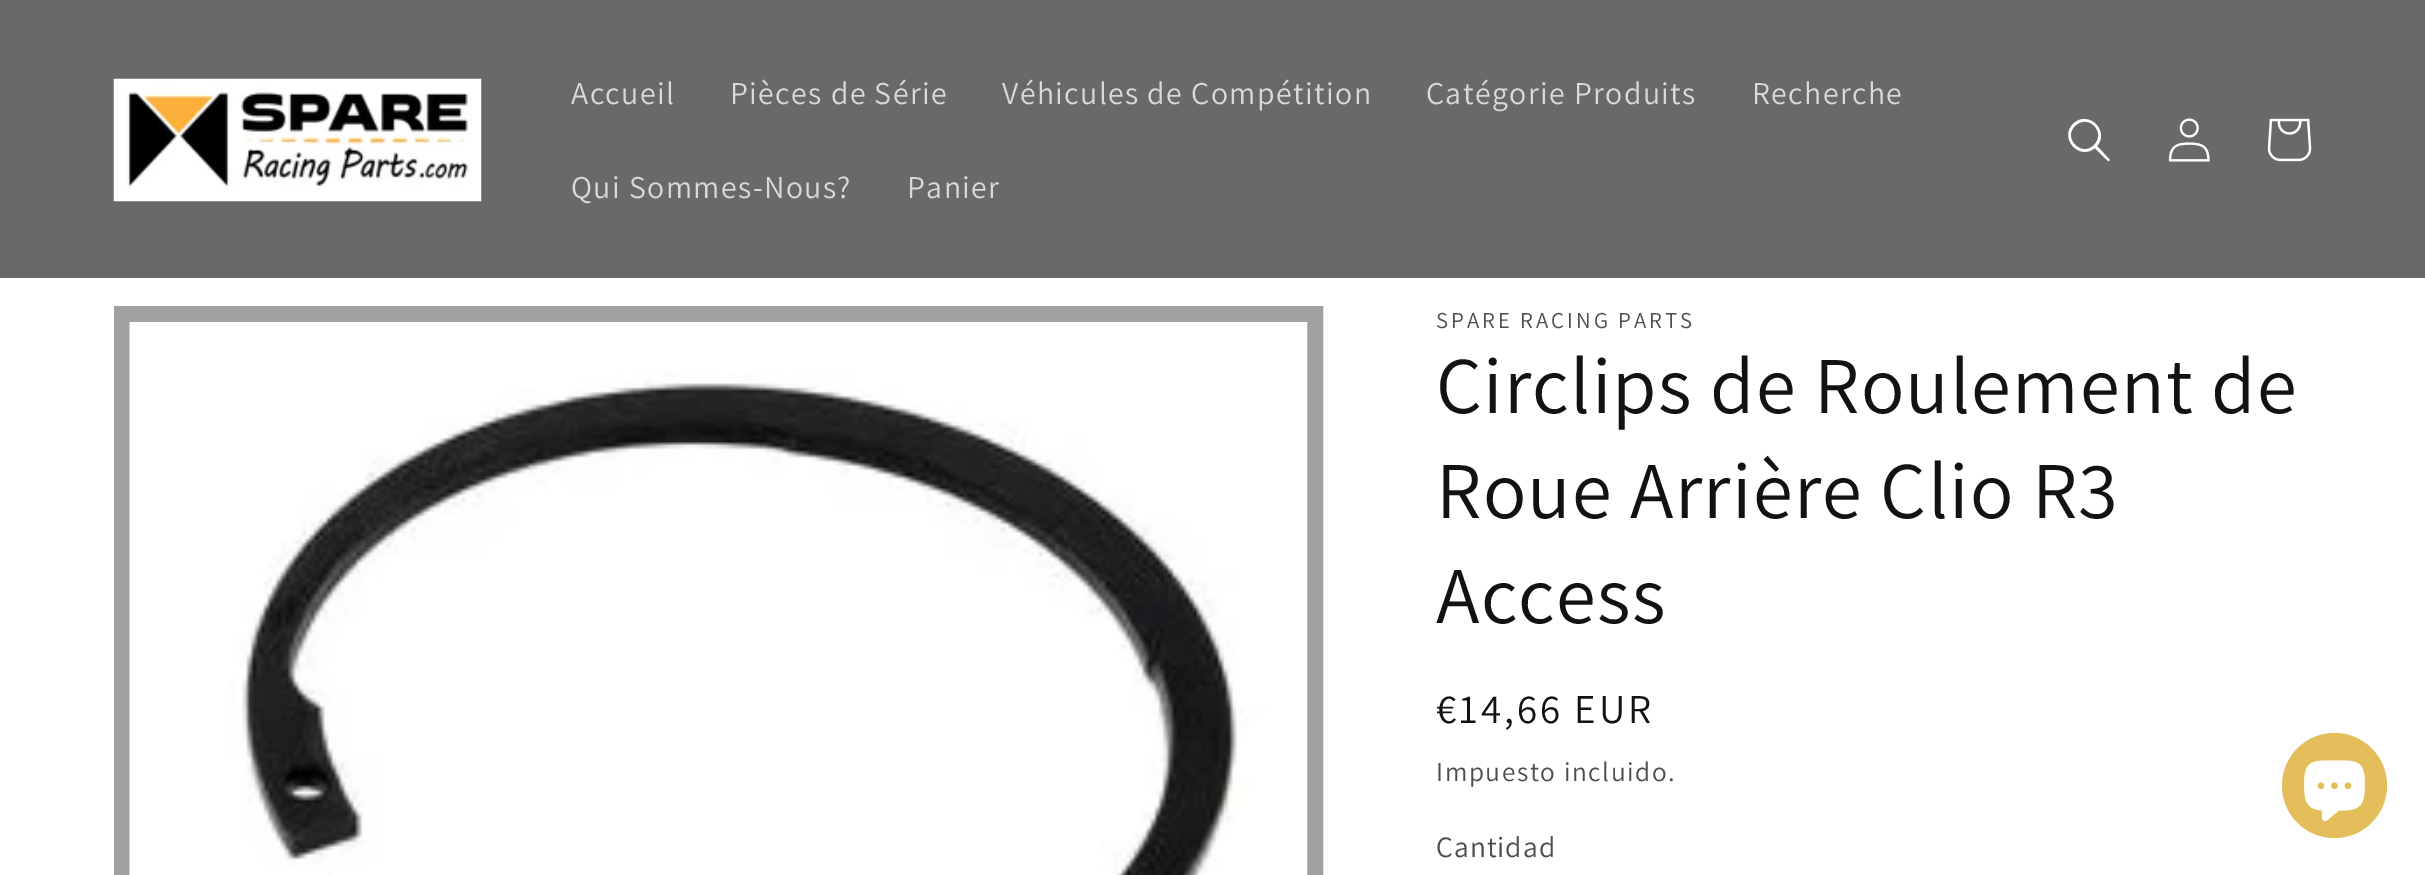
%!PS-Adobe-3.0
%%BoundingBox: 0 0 2425 875
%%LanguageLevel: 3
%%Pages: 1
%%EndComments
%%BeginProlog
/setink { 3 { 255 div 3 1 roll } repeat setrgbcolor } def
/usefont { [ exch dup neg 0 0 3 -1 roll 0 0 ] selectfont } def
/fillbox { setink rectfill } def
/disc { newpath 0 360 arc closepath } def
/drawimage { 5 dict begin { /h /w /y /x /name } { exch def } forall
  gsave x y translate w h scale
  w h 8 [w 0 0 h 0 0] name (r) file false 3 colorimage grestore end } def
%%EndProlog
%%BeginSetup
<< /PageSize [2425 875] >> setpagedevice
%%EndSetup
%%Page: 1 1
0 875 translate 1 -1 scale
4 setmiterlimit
0 0 2425 875 255 255 255 fillbox
0 0 2425 278 106 105 105 fillbox
(assets/img1.rgb) 113 78 369 124 drawimage
/Assistant-Regular 31.8 usefont
218 218 218 setink
571 104 moveto 1.4 0 (Accueil) ashow
730 104 moveto 1.4 0 (Pièces de Série) ashow
1002 104 moveto 1.4 0 (Véhicules de Compétition) ashow
1426 104 moveto 1.4 0 (Catégorie Produits) ashow
1752 104 moveto 1.4 0 (Recherche) ashow
571 198 moveto 1.4 0 (Qui Sommes-Nous?) ashow
907 198 moveto 1.4 0 (Panier) ashow
255 255 255 setink
2094 145 moveto 2082 158 2062 138 2075 126 curveto 2088 113 2107 132 2094 145 curveto closepath 2095 148 moveto 2079 161 2059 138 2073 124 curveto 2088 109 2110 131 2097 146 curveto 2110 160 lineto 2109 161 lineto 2108 162 2097 150 2095 148 curveto closepath eofill
(assets/img2.rgb) 2168 118 42 44 drawimage
(assets/img3.rgb) 2267 118 45 44 drawimage
160 160 160 setink
16 setlinewidth
122 314 1193 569 rectstroke
(assets/img4.rgb) 129 322 1179 553 drawimage
/Assistant-Regular 22.75 usefont
77 77 77 setink
1436 328 moveto 3 0 (SPARE RACING PARTS) ashow
/Assistant-Regular 80.5 usefont
18 18 18 setink
1436 413 moveto 1.25 0 (Circlips de Roulement de) ashow
1436 518 moveto 1.25 0 (Roue Arrière Clio R3) ashow
1436 623 moveto 1.25 0 (Access) ashow
/Assistant-Regular 41 usefont
1436 723 moveto 3 0 (€14,66 EUR) ashow
/Assistant-Regular 27.25 usefont
77 77 77 setink
1436 781 moveto 1.6 0 (Impuesto incluido.) ashow
/Assistant-Regular 29.5 usefont
1436 857 moveto 1 0 (Cantidad) ashow
228 190 90 setink
2334.5 785.5 52.5 disc fill
(assets/img5.rgb) 2304 760 61 62 drawimage
showpage
%%EOF
